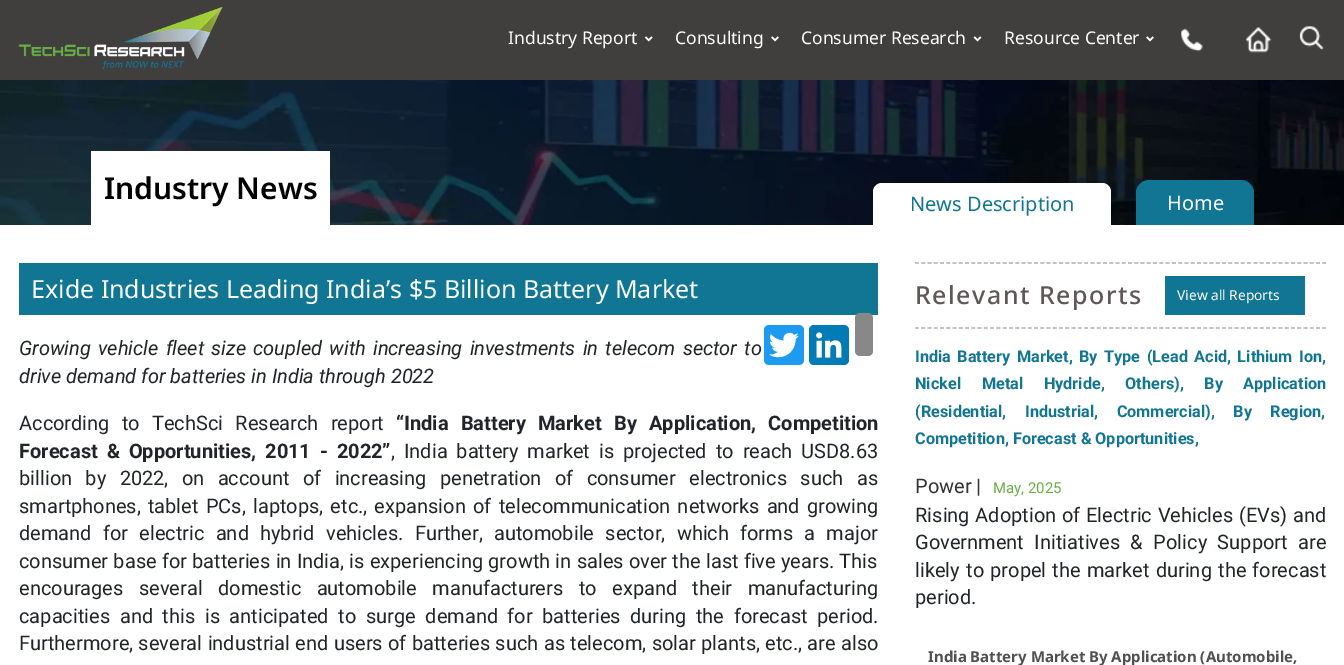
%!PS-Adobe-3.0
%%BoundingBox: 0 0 1344 665
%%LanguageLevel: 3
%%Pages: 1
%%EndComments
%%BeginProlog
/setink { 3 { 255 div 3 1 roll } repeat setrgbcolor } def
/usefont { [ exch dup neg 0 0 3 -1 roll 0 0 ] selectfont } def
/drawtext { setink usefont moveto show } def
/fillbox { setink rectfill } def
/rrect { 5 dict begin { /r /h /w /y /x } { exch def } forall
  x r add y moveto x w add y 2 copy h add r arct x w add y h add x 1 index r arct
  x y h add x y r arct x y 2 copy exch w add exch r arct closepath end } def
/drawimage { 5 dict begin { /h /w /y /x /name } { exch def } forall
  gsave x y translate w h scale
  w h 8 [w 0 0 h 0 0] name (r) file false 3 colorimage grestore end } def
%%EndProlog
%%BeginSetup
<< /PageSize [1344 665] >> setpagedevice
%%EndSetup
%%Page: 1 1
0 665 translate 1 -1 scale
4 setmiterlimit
0 0 1344 665 255 255 255 fillbox
0 0 1344 80 65 62 62 fillbox
(assets/img1.rgb) 18 7 205 63 drawimage
(Industry Report) 508 44 /NotoSans-Regular 17.5 255 255 255 drawtext
(assets/img2.rgb) 644 36 9 6 drawimage
(Consulting) 675 44 /NotoSans-Regular 17.5 255 255 255 drawtext
(assets/img3.rgb) 771 36 8 6 drawimage
(Consumer Research) 801 44 /NotoSans-Regular 17.5 255 255 255 drawtext
(assets/img4.rgb) 973 36 9 6 drawimage
(Resource Center) 1004 44 /NotoSans-Regular 17.5 255 255 255 drawtext
(assets/img3.rgb) 1146 36 8 6 drawimage
(assets/img5.rgb) 1180 28 23 24 drawimage
(assets/img6.rgb) 1246 27 26 26 drawimage
(assets/img7.rgb) 1299 26 25 24 drawimage
(assets/img8.rgb) 0 80 1344 145 drawimage
91 151 239 74 255 255 255 fillbox
(Industry News) 104 199 /NotoSans-SemiBold 30 0 0 0 drawtext
255 255 255 setink
882 183 moveto 1102 183 lineto 1107 183 1111 187 1111 192 curveto 1111 225 lineto 873 225 lineto 873 192 lineto 873 187 877 183 882 183 curveto closepath fill
(News Description) 910 211 /NotoSans-Regular 20 16 118 147 drawtext
1149 180 moveto 1241 180 lineto 1248 180 1254 186 1254 193 curveto 1254 225 lineto 1136 225 lineto 1136 193 lineto 1136 186 1142 180 1149 180 curveto closepath fill
(Home) 1167 210 /NotoSans-Regular 20 255 255 255 drawtext
19 263 859 52 16 118 147 fillbox
(Exide Industries Leading India’s $5 Billion Battery Market) 31 298 /NotoSans-Regular 25 255 255 255 drawtext
/Roboto-Italic 20 usefont
33 37 41 setink
19 355 moveto 2.4 0 32 (Growing vehicle fleet size coupled with increasing investments in telecom sector to) widthshow
(drive demand for batteries in India through 2022) 19 383 /Roboto-Italic 20 33 37 41 drawtext
29 155 240 setink
764 325 40 40 5 rrect fill
(assets/img9.rgb) 769 332 30 26 drawimage
0 123 181 setink
809 325 40 40 5 rrect fill
(assets/img10.rgb) 816 332 26 26 drawimage
136 136 136 setink
855 313 18 43 5 rrect fill
/Roboto-Regular 20 usefont
33 37 41 setink
19 430 moveto 7.25 0 32 (According to TechSci Research report) widthshow
(“) 396 430 /Roboto-Bold 20 33 37 41 drawtext
404 430 moveto 7.25 0 32 (India Battery Market By Application, Competition) widthshow
19 458 moveto 4 0 32 (Forecast & Opportunities, 2011 - 2022) widthshow
(”) 382 458 /Roboto-Bold 20 33 37 41 drawtext
/Roboto-Regular 20 usefont
391 458 moveto 4 0 32 (, India battery market is projected to reach USD8.63) widthshow
19 485 moveto 8.4 0 32 (billion by 2022, on account of increasing penetration of consumer electronics such as) widthshow
19 513 moveto 2.25 0 32 (smartphones, tablet PCs, laptops, etc., expansion of telecommunication networks and growing) widthshow
19 540 moveto 6.25 0 32 (demand for electric and hybrid vehicles. Further, automobile sector, which forms a major) widthshow
19 568 moveto 0.25 0 32 (consumer base for batteries in India, is experiencing growth in sales over the last five years. This) widthshow
19 595 moveto 10.5 0 32 (encourages several domestic automobile manufacturers to expand their manufacturing) widthshow
19 623 moveto 4.6 0 32 (capacities and this is anticipated to surge demand for batteries during the forecast period.) widthshow
19 650 moveto 0.4 0 32 (Furthermore, several industrial end users of batteries such as telecom, solar plants, etc., are also) widthshow
172 172 172 setink
1.2 setlinewidth
[3.75 2.52] 0 setdash
915 263 moveto 1326 263 lineto stroke
915 328 moveto 1326 328 lineto stroke
/NotoSans-Medium 25 usefont
96 87 88 setink
915 304 moveto 1.5 0 (Relevant Reports) ashow
1165 276 140 39 16 118 147 fillbox
(View all Reports) 1177 300 /NotoSans-Regular 13.75 255 255 255 drawtext
/Roboto-Bold 16.25 usefont
16 118 147 setink
915 362 moveto 2.4 0 32 (India Battery Market, By Type \(Lead Acid, Lithium Ion,) widthshow
915 389 moveto 16.5 0 32 (Nickel Metal Hydride, Others\), By Application) widthshow
915 417 moveto 14.5 0 32 (\(Residential, Industrial, Commercial\), By Region,) widthshow
(Competition, Forecast & Opportunities,) 915 444 /Roboto-Bold 16.25 16 118 147 drawtext
(Power |) 915 493 /Roboto-Regular 20 51 51 51 drawtext
(May, 2025) 993 493 /Roboto-Regular 15 103 174 69 drawtext
/Roboto-Regular 20 usefont
33 37 41 setink
915 522 moveto 0.75 0 32 (Rising Adoption of Electric Vehicles \(EVs\) and) widthshow
915 549 moveto 5.5 0 32 (Government Initiatives & Policy Support are) widthshow
915 577 moveto 1.25 0 32 (likely to propel the market during the forecast) widthshow
(period.) 915 604 /Roboto-Regular 20 33 37 41 drawtext
(India Battery Market By Application \(Automobile,) 928 662 /NotoSans-Bold 15 80 80 80 drawtext
showpage
%%EOF
